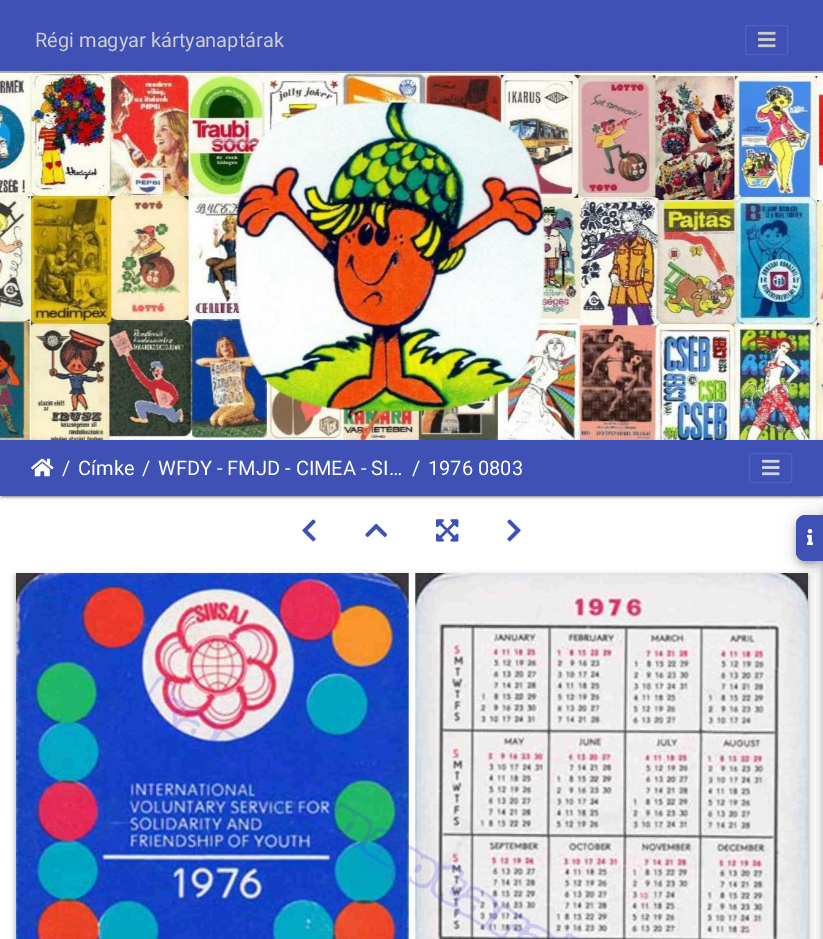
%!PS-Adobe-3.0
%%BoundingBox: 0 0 823 939
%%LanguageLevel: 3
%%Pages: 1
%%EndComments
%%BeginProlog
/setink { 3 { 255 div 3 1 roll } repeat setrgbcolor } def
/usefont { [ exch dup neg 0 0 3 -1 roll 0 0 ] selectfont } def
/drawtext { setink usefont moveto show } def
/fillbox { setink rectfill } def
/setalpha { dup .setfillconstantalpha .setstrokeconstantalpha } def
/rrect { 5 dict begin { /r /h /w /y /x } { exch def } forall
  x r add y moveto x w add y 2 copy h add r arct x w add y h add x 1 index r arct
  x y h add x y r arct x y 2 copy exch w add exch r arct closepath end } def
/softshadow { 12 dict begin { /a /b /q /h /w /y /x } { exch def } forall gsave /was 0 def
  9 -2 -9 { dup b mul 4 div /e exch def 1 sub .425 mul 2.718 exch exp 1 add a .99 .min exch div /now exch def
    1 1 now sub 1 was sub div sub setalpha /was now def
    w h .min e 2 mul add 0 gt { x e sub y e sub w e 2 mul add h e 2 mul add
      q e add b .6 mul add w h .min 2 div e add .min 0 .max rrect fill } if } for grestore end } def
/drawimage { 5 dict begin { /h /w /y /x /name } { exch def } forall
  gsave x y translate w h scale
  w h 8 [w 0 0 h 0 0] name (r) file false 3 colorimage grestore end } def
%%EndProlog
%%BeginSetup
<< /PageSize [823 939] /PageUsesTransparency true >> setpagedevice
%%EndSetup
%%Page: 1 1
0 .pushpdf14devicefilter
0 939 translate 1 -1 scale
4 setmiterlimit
0 0 823 939 255 255 255 fillbox
(assets/img1.rgb) 0 0 823 440 drawimage
(Régi magyar kártyanaptárak) 35 47 /Roboto-Regular 20 204 204 204 drawtext
82 98 188 setink
745.5 25.5 42 29 1.5 rrect stroke
(assets/img2.rgb) 758 31 18 17 drawimage
0 0 0 setink
0 441 823 56 0 2.5 0.12 softshadow
2 445 819 52 0 0.5 0.2 softshadow
0 442 823 56 0 1 0.14 softshadow
16 576 792 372 0 3 0.23 softshadow
16 576 792 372 0 3 0.16 softshadow
(assets/img10.rgb) 16 573 792 366 drawimage
823 506 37 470 10 9 0.12 softshadow
823 511 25 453 10 5 0.14 softshadow
796 516 27 46 10 9 0.12 softshadow
0 440 823 56 63 81 181 fillbox
(assets/img3.rgb) 31 458 23 19 drawimage
(/) 62 475 /Roboto-Regular 20 255 255 255 drawtext
(Címke) 78 475 /Roboto-Regular 20 255 255 255 drawtext
(/) 142 475 /Roboto-Regular 20 255 255 255 drawtext
(WFDY - FMJD - CIMEA - SI…) 158 475 /Roboto-Regular 20 255 255 255 drawtext
(/) 412 475 /Roboto-Regular 20 255 255 255 drawtext
(1976 0803) 428 475 /Roboto-Regular 20 255 255 255 drawtext
82 98 188 setink
749.5 453.5 42 29 1.5 rrect stroke
(assets/img4.rgb) 762 459 18 17 drawimage
(assets/img5.rgb) 302 519 14 23 drawimage
(assets/img6.rgb) 365 523 23 14 drawimage
(assets/img7.rgb) 436 519 23 23 drawimage
(assets/img8.rgb) 507 519 14 23 drawimage
0 0 0 setink
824 509 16 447 9 2.5 0.2 softshadow
797 519 25 44 9 2.5 0.2 softshadow
796 521 27 46 10 5 0.14 softshadow
63 81 181 setink
806 515 moveto 823 515 lineto 823 561 lineto 806 561 lineto 800.5 561 796 556.5 796 551 curveto 796 525 lineto 796 519.5 800.5 515 806 515 curveto closepath fill
806 515 moveto 823 515 lineto 823 561 lineto 806 561 lineto 800 561 796 557 796 551 curveto 796 525 lineto 796 519 800 515 806 515 curveto closepath 806 516 moveto 823 516 lineto 823 560 lineto 806 560 lineto 801 560 797 556 797 551 curveto 797 525 lineto 797 520 801 516 806 516 curveto closepath eofill
(assets/img9.rgb) 807 529 6 16 drawimage
.poppdf14devicefilter showpage
%%EOF
